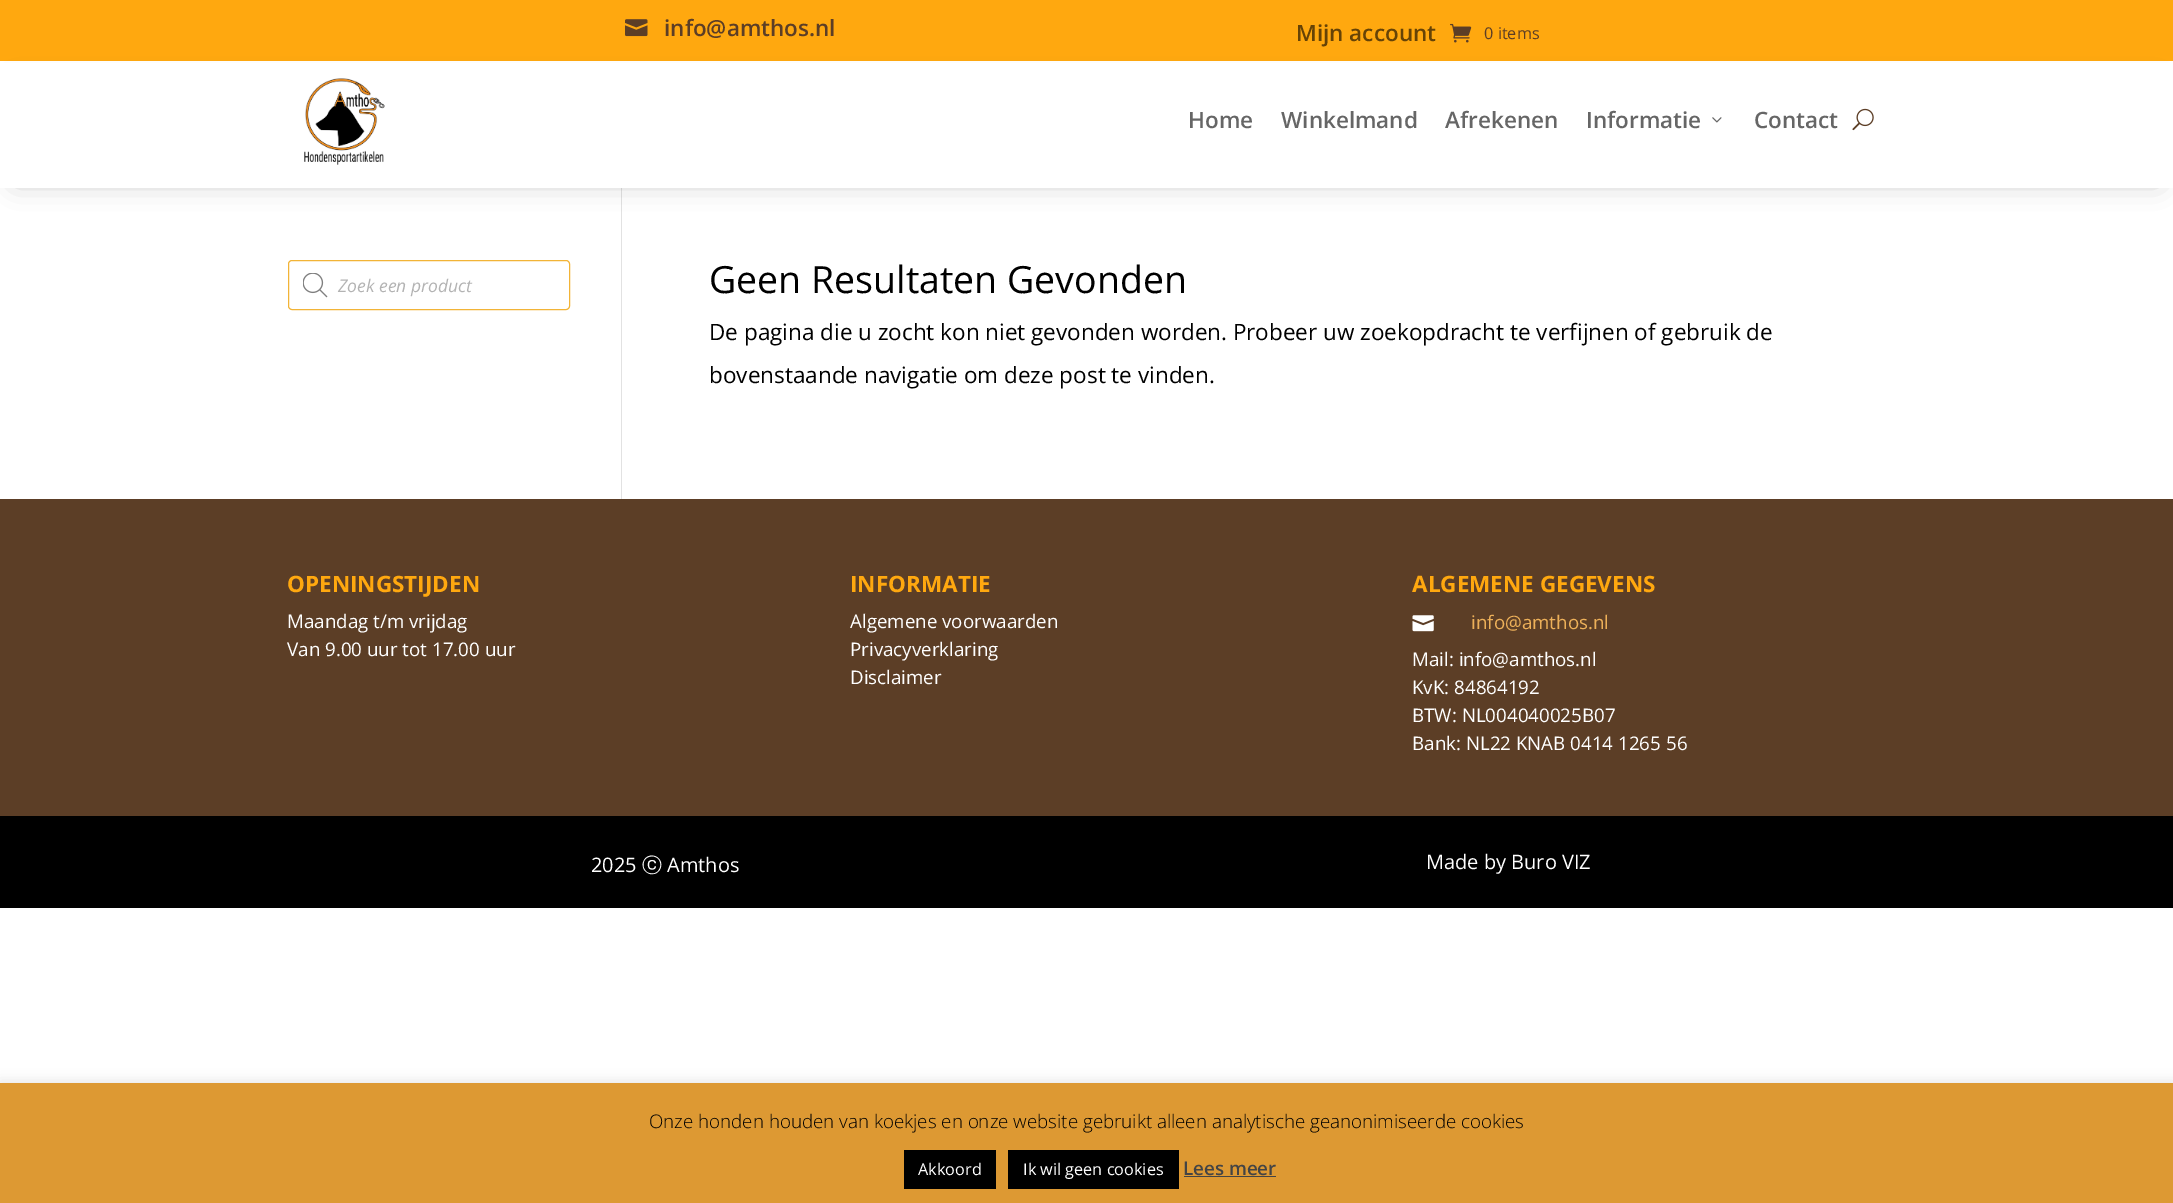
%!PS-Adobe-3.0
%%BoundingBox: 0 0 2173 1203
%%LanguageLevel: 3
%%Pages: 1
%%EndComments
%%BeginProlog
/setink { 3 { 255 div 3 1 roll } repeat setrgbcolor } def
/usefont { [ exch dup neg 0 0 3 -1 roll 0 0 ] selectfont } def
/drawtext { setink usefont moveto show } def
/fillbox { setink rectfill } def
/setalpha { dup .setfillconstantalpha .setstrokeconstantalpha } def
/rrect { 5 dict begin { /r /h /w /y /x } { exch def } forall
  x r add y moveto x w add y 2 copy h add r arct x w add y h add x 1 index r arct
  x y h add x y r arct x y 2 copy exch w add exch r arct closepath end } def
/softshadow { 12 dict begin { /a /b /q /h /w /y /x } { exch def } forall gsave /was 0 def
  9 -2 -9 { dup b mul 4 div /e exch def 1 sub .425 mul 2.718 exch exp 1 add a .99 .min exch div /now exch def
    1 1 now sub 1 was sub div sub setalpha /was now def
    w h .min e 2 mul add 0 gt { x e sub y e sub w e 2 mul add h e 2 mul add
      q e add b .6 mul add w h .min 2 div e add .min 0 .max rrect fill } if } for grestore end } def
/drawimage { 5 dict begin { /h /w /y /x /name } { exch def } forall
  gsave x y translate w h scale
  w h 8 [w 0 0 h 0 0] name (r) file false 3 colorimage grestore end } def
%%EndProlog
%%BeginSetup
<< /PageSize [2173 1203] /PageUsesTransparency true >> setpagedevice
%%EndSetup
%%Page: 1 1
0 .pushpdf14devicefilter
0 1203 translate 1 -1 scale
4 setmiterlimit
0 0 2173 1203 255 255 255 fillbox
0 0 2173 61 255 168 15 fillbox
(assets/img1.rgb) 625 19 23 18 drawimage
(info@amthos.nl) 664 36 /OpenSans-SemiBold 22.5 92 62 38 drawtext
(Mijn account) 1296 41 /OpenSans-SemiBold 22.5 102 67 6 drawtext
(assets/img2.rgb) 1450 23 22 20 drawimage
(0 items) 1484 39 /OpenSans-Regular 16.25 92 62 38 drawtext
621 188 1 311 226 226 226 fillbox
0 0 0 setink
16 88 2142 92 0 14 0.3 softshadow
0 63 2173 125 255 255 255 fillbox
(assets/img3.rgb) 304 78 81 87 drawimage
(Home) 1188 128 /OpenSans-SemiBold 22.5 102 102 102 drawtext
(Winkelmand) 1281 128 /OpenSans-SemiBold 22.5 102 102 102 drawtext
(Afrekenen) 1445 128 /OpenSans-SemiBold 22.5 102 102 102 drawtext
(Informatie) 1586 128 /OpenSans-SemiBold 22.5 102 102 102 drawtext
(assets/img4.rgb) 1712 117 10 6 drawimage
(Contact) 1754 128 /OpenSans-SemiBold 22.5 102 102 102 drawtext
(assets/img5.rgb) 1852 108 22 23 drawimage
242 180 55 setink
288.5 260.5 281 49 3.5 rrect stroke
(assets/img6.rgb) 303 273 25 25 drawimage
(Zoek een product) 338 292 /OpenSans-Italic 17.5 179 179 179 drawtext
(Geen Resultaten Gevonden) 709 293 /OpenSans-Regular 37.5 0 0 0 drawtext
(De pagina die u zocht kon niet gevonden worden. Probeer uw zoekopdracht te verfijnen of gebruik de) 709 340 /OpenSans-Regular 22.5 0 0 0 drawtext
(bovenstaande navigatie om deze post te vinden.) 709 383 /OpenSans-Regular 22.5 0 0 0 drawtext
0 499 2173 317 92 62 38 fillbox
(OPENINGSTIJDEN) 287 592 /OpenSans-Bold 22.5 255 168 15 drawtext
(Maandag t/m vrijdag) 287 628 /OpenSans-Regular 18.75 255 255 255 drawtext
(Van 9.00 uur tot 17.00 uur) 287 656 /OpenSans-Regular 18.75 255 255 255 drawtext
(INFORMATIE) 850 592 /OpenSans-Bold 22.5 255 168 15 drawtext
(Algemene voorwaarden) 850 628 /OpenSans-Regular 18.75 255 255 255 drawtext
(Privacyverklaring) 850 656 /OpenSans-Regular 18.75 255 255 255 drawtext
(Disclaimer) 850 684 /OpenSans-Regular 18.75 255 255 255 drawtext
(ALGEMENE GEGEVENS) 1412 592 /OpenSans-Bold 22.5 255 168 15 drawtext
(assets/img7.rgb) 1412 615 22 17 drawimage
(info@amthos.nl) 1471 629 /OpenSans-Regular 18.75 237 176 89 drawtext
(Mail: info@amthos.nl) 1412 666 /OpenSans-Regular 18.75 255 255 255 drawtext
(KvK: 84864192) 1412 694 /OpenSans-Regular 18.75 255 255 255 drawtext
(BTW: NL004040025B07) 1412 722 /OpenSans-Regular 18.75 255 255 255 drawtext
(Bank: NL22 KNAB 0414 1265 56) 1412 750 /OpenSans-Regular 18.75 255 255 255 drawtext
0 816 2173 92 0 0 0 fillbox
(2025) 591 872 /OpenSans-Regular 20 255 255 255 drawtext
(ⓒ) 642 872 /WenQuanYiZenHei-Medium 20 255 255 255 drawtext
(Amthos) 667 872 /OpenSans-Regular 20 255 255 255 drawtext
(Made by Buro VIZ) 1426 869 /OpenSans-Regular 20 255 255 255 drawtext
172 171 171 setink
0 1081 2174 122 0 6 0.3 softshadow
0 1083 2173 120 221 153 51 fillbox
(Onze honden houden van koekjes en onze website gebruikt alleen analytische geanonimiseerde cookies) 649 1128 /OpenSans-Light 18.75 0 0 0 drawtext
904 1150 92 39 0 0 0 fillbox
(Akkoord) 918 1175 /OpenSans-Regular 16.25 255 255 255 drawtext
1008 1150 171 39 0 0 0 fillbox
(Ik wil geen cookies) 1023 1175 /OpenSans-Regular 16.25 255 255 255 drawtext
(Lees meer) 1183 1175 /OpenSans-SemiBold 18.75 68 68 68 drawtext
1184 1176 92 1 68 68 68 fillbox
.poppdf14devicefilter showpage
%%EOF
